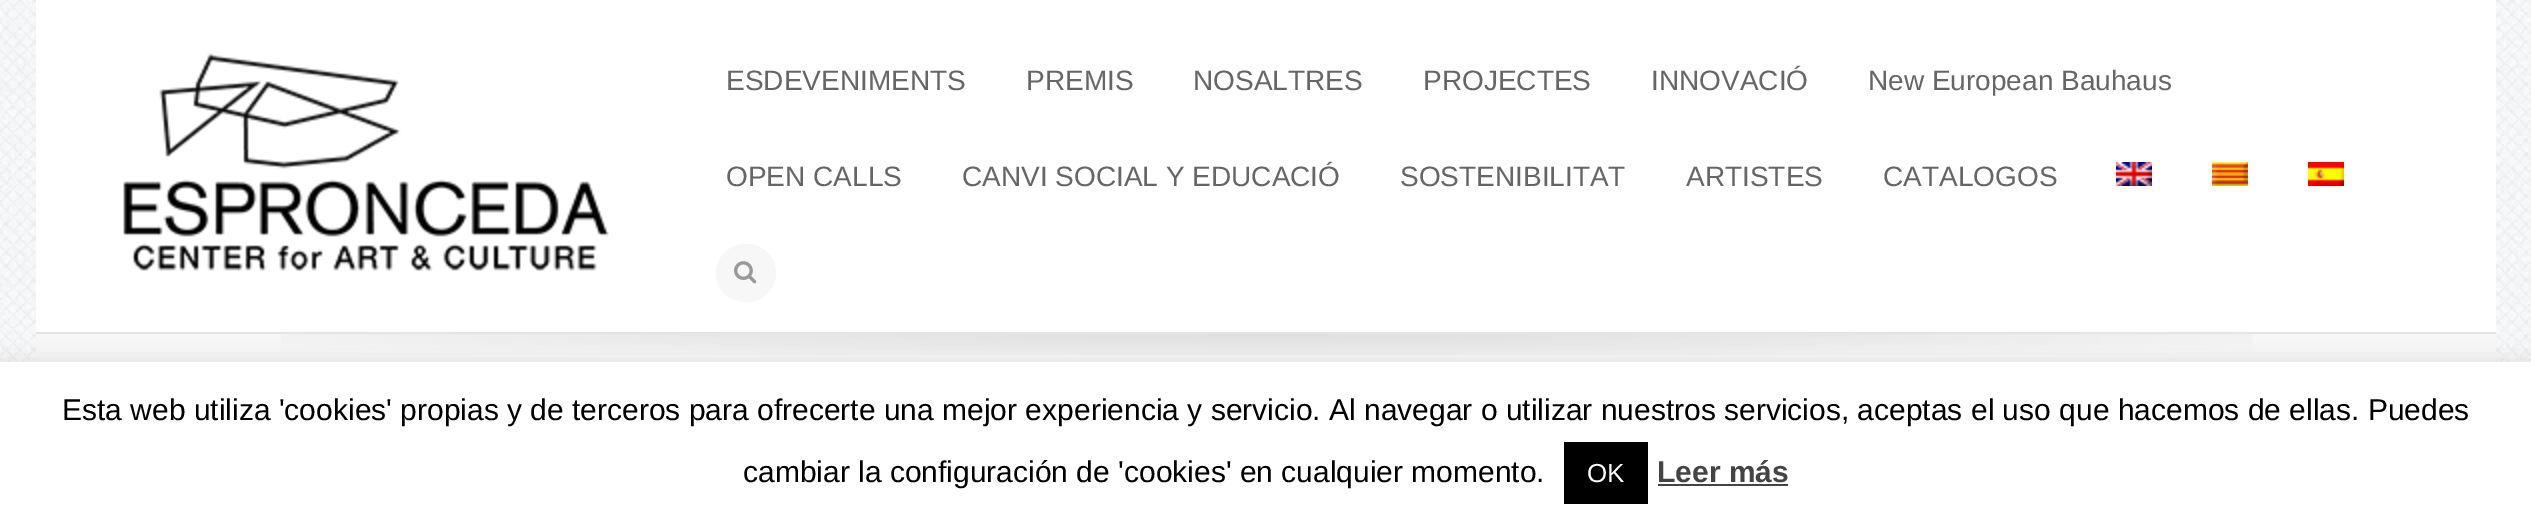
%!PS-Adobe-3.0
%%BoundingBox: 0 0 2531 528
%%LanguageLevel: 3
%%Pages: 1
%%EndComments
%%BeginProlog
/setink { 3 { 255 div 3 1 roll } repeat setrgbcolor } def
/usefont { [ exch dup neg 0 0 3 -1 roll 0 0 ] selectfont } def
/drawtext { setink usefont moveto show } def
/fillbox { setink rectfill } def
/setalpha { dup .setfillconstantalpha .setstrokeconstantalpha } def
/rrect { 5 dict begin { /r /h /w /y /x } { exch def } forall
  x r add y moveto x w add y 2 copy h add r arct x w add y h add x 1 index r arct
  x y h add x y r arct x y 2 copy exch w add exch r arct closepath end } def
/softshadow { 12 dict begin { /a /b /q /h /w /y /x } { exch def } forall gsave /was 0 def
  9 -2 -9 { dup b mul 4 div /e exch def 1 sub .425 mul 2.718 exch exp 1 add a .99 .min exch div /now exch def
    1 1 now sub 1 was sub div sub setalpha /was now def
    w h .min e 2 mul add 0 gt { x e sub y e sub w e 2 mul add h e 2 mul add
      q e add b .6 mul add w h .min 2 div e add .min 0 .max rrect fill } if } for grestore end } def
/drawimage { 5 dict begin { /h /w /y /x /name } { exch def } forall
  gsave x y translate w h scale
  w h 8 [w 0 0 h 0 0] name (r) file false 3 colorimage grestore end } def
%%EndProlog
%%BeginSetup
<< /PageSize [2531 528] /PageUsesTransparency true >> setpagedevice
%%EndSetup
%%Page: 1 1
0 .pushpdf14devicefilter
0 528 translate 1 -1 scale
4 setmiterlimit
0 0 2531 528 255 255 255 fillbox
(assets/img1.rgb) 0 0 2531 362 drawimage
36 0 2460 332 255 255 255 fillbox
36 332 2460 2 228 228 228 fillbox
(assets/img2.rgb) 123 53 486 218 drawimage
(ESDEVENIMENTS) 726 90 /LiberationSans-Regular 28 102 102 102 drawtext
(PREMIS) 1026 90 /LiberationSans-Regular 28 102 102 102 drawtext
(NOSALTRES) 1193 90 /LiberationSans-Regular 28 102 102 102 drawtext
(PROJECTES) 1423 90 /LiberationSans-Regular 28 102 102 102 drawtext
(INNOVACIÓ) 1651 90 /LiberationSans-Regular 28 102 102 102 drawtext
(New European Bauhaus) 1868 90 /LiberationSans-Regular 28 102 102 102 drawtext
(OPEN CALLS) 726 186 /LiberationSans-Regular 28 102 102 102 drawtext
(CANVI SOCIAL Y EDUCACIÓ) 962 186 /LiberationSans-Regular 28 102 102 102 drawtext
(SOSTENIBILITAT) 1400 186 /LiberationSans-Regular 28 102 102 102 drawtext
(ARTISTES) 1686 186 /LiberationSans-Regular 28 102 102 102 drawtext
(CATALOGOS) 1883 186 /LiberationSans-Regular 28 102 102 102 drawtext
(assets/img3.rgb) 2116 162 36 24 drawimage
(assets/img4.rgb) 2212 162 36 24 drawimage
(assets/img5.rgb) 2308 162 36 24 drawimage
247 247 247 setink
716 244 60 58 29 rrect fill
(assets/img6.rgb) 734 261 23 23 drawimage
36 334 2460 28 247 247 247 fillbox
(assets/img7.rgb) 281 334 1972 21 drawimage
172 171 171 setink
0 360 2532 166 0 10 0.3 softshadow
0 362 2531 166 255 255 255 fillbox
(Esta web utiliza 'cookies' propias y de terceros para ofrecerte una mejor experiencia y servicio. Al navegar o utilizar nuestros servicios, aceptas el uso que hacemos de ellas. Puedes) 62 420 /LiberationSans-Regular 30 0 0 0 drawtext
(cambiar la configuración de 'cookies' en cualquier momento.) 743 482 /LiberationSans-Regular 30 0 0 0 drawtext
1564 442 84 62 0 0 0 fillbox
(OK) 1587 482 /LiberationSans-Regular 26 255 255 255 drawtext
(Leer más) 1657 482 /LiberationSans-Bold 30 68 68 68 drawtext
1658 484 130 2 68 68 68 fillbox
.poppdf14devicefilter showpage
%%EOF
